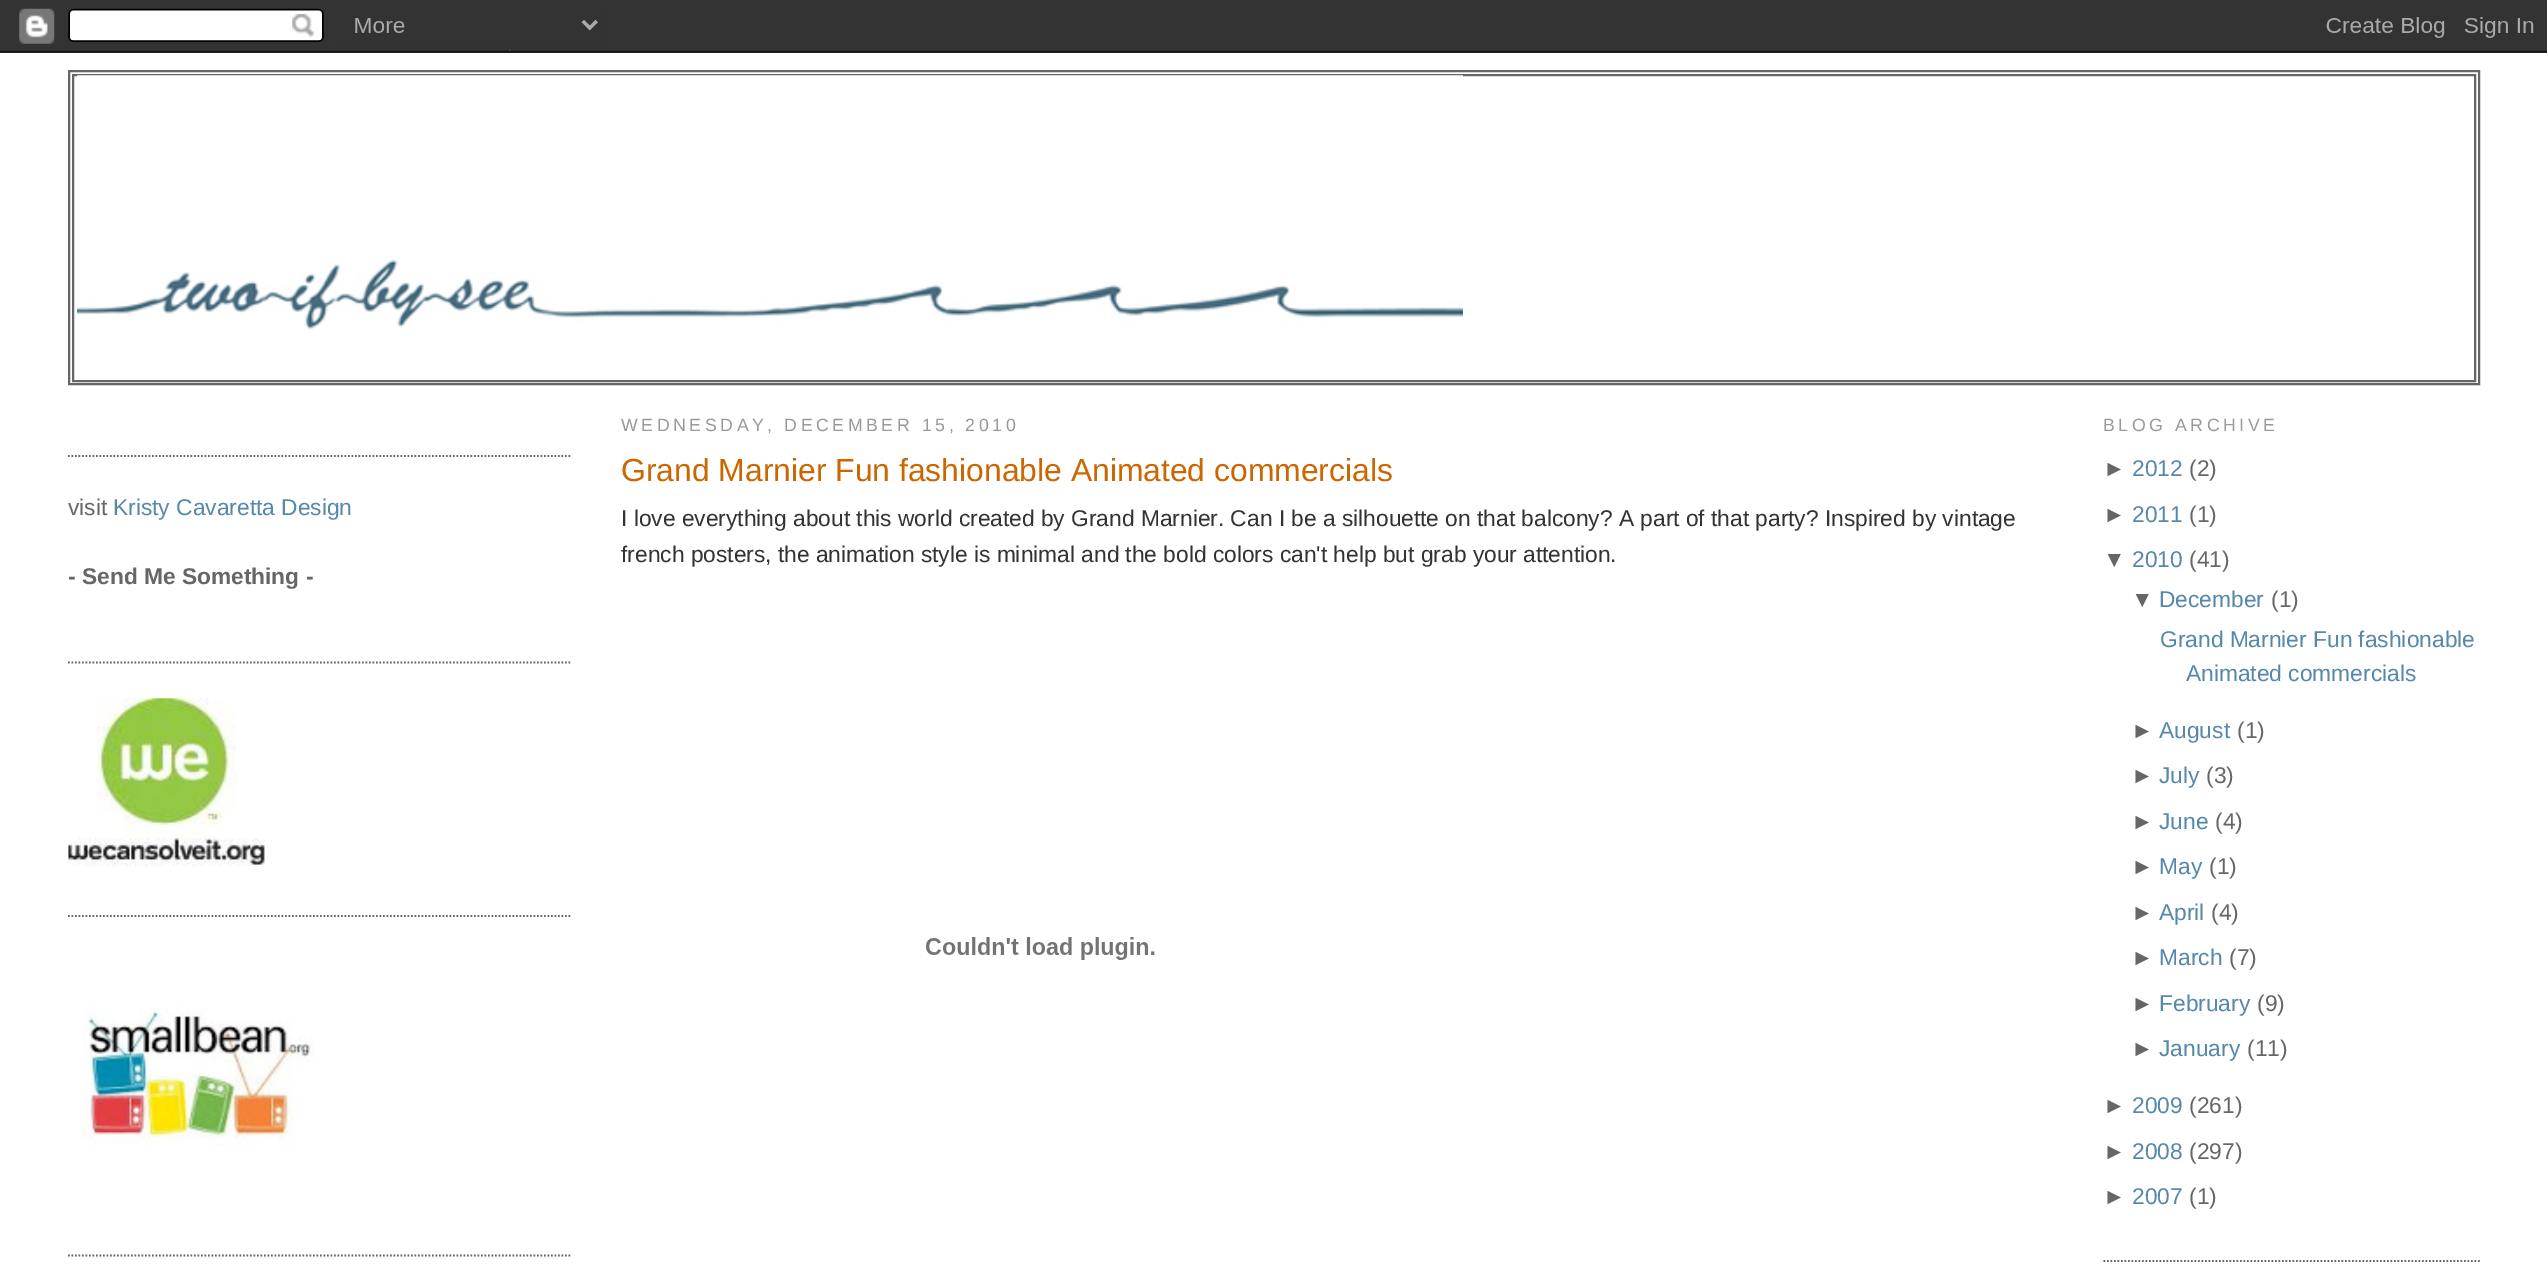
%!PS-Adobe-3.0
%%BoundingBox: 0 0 2547 1273
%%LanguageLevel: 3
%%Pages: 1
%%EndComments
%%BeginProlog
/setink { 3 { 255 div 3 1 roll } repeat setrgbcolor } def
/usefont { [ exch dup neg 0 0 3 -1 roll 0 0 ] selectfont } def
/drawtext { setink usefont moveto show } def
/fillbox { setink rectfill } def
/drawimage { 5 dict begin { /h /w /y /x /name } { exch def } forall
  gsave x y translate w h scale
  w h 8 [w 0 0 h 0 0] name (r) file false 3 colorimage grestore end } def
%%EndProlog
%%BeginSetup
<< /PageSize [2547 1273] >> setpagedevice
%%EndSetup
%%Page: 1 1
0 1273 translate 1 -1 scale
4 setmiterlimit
0 0 2547 1273 255 255 255 fillbox
(assets/img1.rgb) 0 0 2547 53 drawimage
102 102 102 setink
2 setlinewidth
69 71 2410 313 rectstroke
73 75 2402 306 rectstroke
(assets/img2.rgb) 77 75 1386 255 drawimage
1.8 setlinewidth
[1.75 1.75] 0 setdash
68 456 moveto 570.5 456 lineto stroke
68 662.5 moveto 570.5 662.5 lineto stroke
(visit) 68 515 /LiberationSans-Regular 22.75 102 102 102 drawtext
(Kristy Cavaretta Design) 113 515 /LiberationSans-Regular 22.75 85 136 170 drawtext
(- Send Me Something -) 68 584 /LiberationSans-Bold 22.75 102 102 102 drawtext
68 916 moveto 570.5 916 lineto stroke
(assets/img3.rgb) 68 698 197 169 drawimage
68 1255.5 moveto 570.5 1255.5 lineto stroke
(assets/img4.rgb) 82 1007 232 139 drawimage
/LiberationSans-Regular 17.75 usefont
153 153 153 setink
621 431 moveto 3.55 0 (WEDNESDAY, DECEMBER 15, 2010) ashow
(Grand Marnier Fun fashionable Animated commercials) 621 481 /LiberationSans-Regular 31.85 204 102 0 drawtext
(I love everything about this world created by Grand Marnier. Can I be a silhouette on that balcony? A part of that party? Inspired by vintage) 621 526 /LiberationSans-Regular 22.75 51 51 51 drawtext
(french posters, the animation style is minimal and the bold colors can't help but grab your attention.) 621 562 /LiberationSans-Regular 22.75 51 51 51 drawtext
(assets/img5.rgb) 926 937 229 23 drawimage
102 102 102 setink
2103.5 1261 moveto 2480 1261 lineto stroke
/LiberationSans-Regular 17.75 usefont
153 153 153 setink
2103 431 moveto 3.55 0 (BLOG ARCHIVE) ashow
(►) 2103 476 /LiberationSans-Regular 22.75 102 102 102 drawtext
(2012) 2132 476 /LiberationSans-Regular 22.75 85 136 170 drawtext
(\(2\)) 2189 476 /LiberationSans-Regular 22.75 102 102 102 drawtext
(►) 2103 522 /LiberationSans-Regular 22.75 102 102 102 drawtext
(2011) 2132 522 /LiberationSans-Regular 22.75 85 136 170 drawtext
(\(1\)) 2189 522 /LiberationSans-Regular 22.75 102 102 102 drawtext
(▼) 2103 567 /LiberationSans-Regular 22.75 102 102 102 drawtext
(2010) 2132 567 /LiberationSans-Regular 22.75 85 136 170 drawtext
(\(41\)) 2189 567 /LiberationSans-Regular 22.75 102 102 102 drawtext
(▼) 2131 607 /LiberationSans-Regular 22.75 102 102 102 drawtext
(December) 2159 607 /LiberationSans-Regular 22.75 85 136 170 drawtext
(\(1\)) 2271 607 /LiberationSans-Regular 22.75 102 102 102 drawtext
(Grand Marnier Fun fashionable) 2160 647 /LiberationSans-Regular 22.75 85 136 170 drawtext
(Animated commercials) 2186 681 /LiberationSans-Regular 22.75 85 136 170 drawtext
(►) 2131 738 /LiberationSans-Regular 22.75 102 102 102 drawtext
(August) 2159 738 /LiberationSans-Regular 22.75 85 136 170 drawtext
(\(1\)) 2237 738 /LiberationSans-Regular 22.75 102 102 102 drawtext
(►) 2131 783 /LiberationSans-Regular 22.75 102 102 102 drawtext
(July) 2159 783 /LiberationSans-Regular 22.75 85 136 170 drawtext
(\(3\)) 2206 783 /LiberationSans-Regular 22.75 102 102 102 drawtext
(►) 2131 829 /LiberationSans-Regular 22.75 102 102 102 drawtext
(June) 2159 829 /LiberationSans-Regular 22.75 85 136 170 drawtext
(\(4\)) 2215 829 /LiberationSans-Regular 22.75 102 102 102 drawtext
(►) 2131 874 /LiberationSans-Regular 22.75 102 102 102 drawtext
(May) 2159 874 /LiberationSans-Regular 22.75 85 136 170 drawtext
(\(1\)) 2209 874 /LiberationSans-Regular 22.75 102 102 102 drawtext
(►) 2131 920 /LiberationSans-Regular 22.75 102 102 102 drawtext
(April) 2159 920 /LiberationSans-Regular 22.75 85 136 170 drawtext
(\(4\)) 2211 920 /LiberationSans-Regular 22.75 102 102 102 drawtext
(►) 2131 965 /LiberationSans-Regular 22.75 102 102 102 drawtext
(March) 2159 965 /LiberationSans-Regular 22.75 85 136 170 drawtext
(\(7\)) 2229 965 /LiberationSans-Regular 22.75 102 102 102 drawtext
(►) 2131 1011 /LiberationSans-Regular 22.75 102 102 102 drawtext
(February) 2159 1011 /LiberationSans-Regular 22.75 85 136 170 drawtext
(\(9\)) 2257 1011 /LiberationSans-Regular 22.75 102 102 102 drawtext
(►) 2131 1056 /LiberationSans-Regular 22.75 102 102 102 drawtext
(January) 2159 1056 /LiberationSans-Regular 22.75 85 136 170 drawtext
(\(11\)) 2247 1056 /LiberationSans-Regular 22.75 102 102 102 drawtext
(►) 2103 1113 /LiberationSans-Regular 22.75 102 102 102 drawtext
(2009) 2132 1113 /LiberationSans-Regular 22.75 85 136 170 drawtext
(\(261\)) 2189 1113 /LiberationSans-Regular 22.75 102 102 102 drawtext
(►) 2103 1159 /LiberationSans-Regular 22.75 102 102 102 drawtext
(2008) 2132 1159 /LiberationSans-Regular 22.75 85 136 170 drawtext
(\(297\)) 2189 1159 /LiberationSans-Regular 22.75 102 102 102 drawtext
(►) 2103 1204 /LiberationSans-Regular 22.75 102 102 102 drawtext
(2007) 2132 1204 /LiberationSans-Regular 22.75 85 136 170 drawtext
(\(1\)) 2189 1204 /LiberationSans-Regular 22.75 102 102 102 drawtext
showpage
%%EOF
